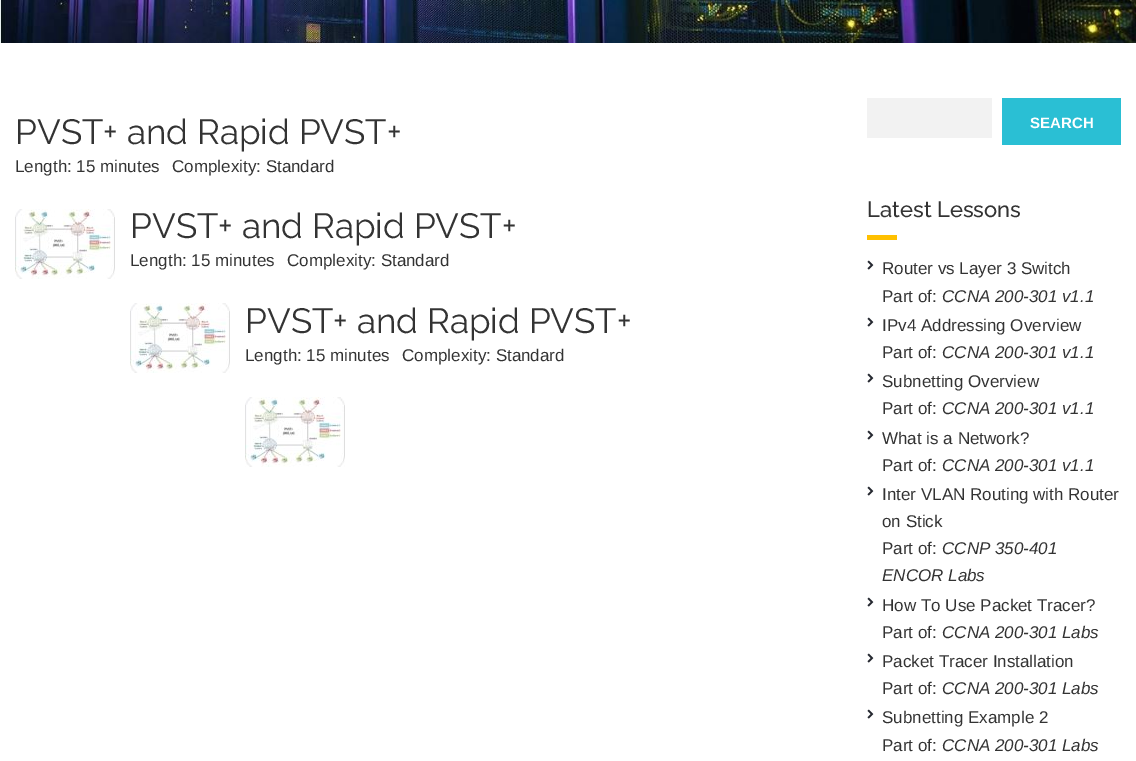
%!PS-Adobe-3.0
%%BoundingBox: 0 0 1136 761
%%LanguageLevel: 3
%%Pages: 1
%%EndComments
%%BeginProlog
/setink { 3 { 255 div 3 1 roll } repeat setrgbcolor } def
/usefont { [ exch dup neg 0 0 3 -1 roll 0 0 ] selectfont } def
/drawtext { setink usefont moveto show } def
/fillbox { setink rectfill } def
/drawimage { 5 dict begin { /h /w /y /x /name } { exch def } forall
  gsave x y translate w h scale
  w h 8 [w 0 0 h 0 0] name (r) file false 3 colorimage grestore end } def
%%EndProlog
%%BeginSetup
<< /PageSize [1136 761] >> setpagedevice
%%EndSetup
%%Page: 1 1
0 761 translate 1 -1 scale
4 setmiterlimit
0 0 1136 761 255 255 255 fillbox
(assets/img1.rgb) 0 0 1136 43 drawimage
(PVST+ and Rapid PVST+) 15 144 /Raleway-Regular 35 51 51 51 drawtext
(Length: 15 minutes) 15 172 /LiberationSans-Regular 17 51 51 51 drawtext
(Complexity: Standard) 172 172 /LiberationSans-Regular 17 51 51 51 drawtext
(assets/img2.rgb) 15 209 100 70 drawimage
(PVST+ and Rapid PVST+) 130 238 /Raleway-Regular 35 51 51 51 drawtext
(Length: 15 minutes) 130 266 /LiberationSans-Regular 17 51 51 51 drawtext
(Complexity: Standard) 287 266 /LiberationSans-Regular 17 51 51 51 drawtext
(assets/img2.rgb) 130 303 100 70 drawimage
(PVST+ and Rapid PVST+) 245 333 /Raleway-Regular 35 51 51 51 drawtext
(Length: 15 minutes) 245 361 /LiberationSans-Regular 17 51 51 51 drawtext
(Complexity: Standard) 402 361 /LiberationSans-Regular 17 51 51 51 drawtext
(assets/img2.rgb) 245 397 100 70 drawimage
867 98 125 40 242 242 242 fillbox
1002 98 119 47 42 191 212 fillbox
(SEARCH) 1030 128 /LiberationSans-Bold 15 255 255 255 drawtext
(Latest Lessons) 867 217 /Raleway-Medium 22 51 51 51 drawtext
867 235 30 5 255 192 0 fillbox
(assets/img3.rgb) 867 260 7 10 drawimage
(Router vs Layer 3 Switch) 882 274 /LiberationSans-Regular 17 51 51 51 drawtext
(Part of:) 882 302 /LiberationSans-Regular 17 51 51 51 drawtext
(CCNA 200-301 v1.1) 942 302 /LiberationSans-Italic 17 51 51 51 drawtext
(assets/img3.rgb) 867 317 7 10 drawimage
(IPv4 Addressing Overview) 882 331 /LiberationSans-Regular 17 51 51 51 drawtext
(Part of:) 882 358 /LiberationSans-Regular 17 51 51 51 drawtext
(CCNA 200-301 v1.1) 942 358 /LiberationSans-Italic 17 51 51 51 drawtext
(assets/img3.rgb) 867 373 7 10 drawimage
(Subnetting Overview) 882 387 /LiberationSans-Regular 17 51 51 51 drawtext
(Part of:) 882 414 /LiberationSans-Regular 17 51 51 51 drawtext
(CCNA 200-301 v1.1) 942 414 /LiberationSans-Italic 17 51 51 51 drawtext
(assets/img3.rgb) 867 430 7 10 drawimage
(What is a Network?) 882 444 /LiberationSans-Regular 17 51 51 51 drawtext
(Part of:) 882 471 /LiberationSans-Regular 17 51 51 51 drawtext
(CCNA 200-301 v1.1) 942 471 /LiberationSans-Italic 17 51 51 51 drawtext
(assets/img3.rgb) 867 486 7 10 drawimage
(Inter VLAN Routing with Router) 882 500 /LiberationSans-Regular 17 51 51 51 drawtext
(on Stick) 882 527 /LiberationSans-Regular 17 51 51 51 drawtext
(Part of:) 882 554 /LiberationSans-Regular 17 51 51 51 drawtext
(CCNP 350-401) 942 554 /LiberationSans-Italic 17 51 51 51 drawtext
(ENCOR Labs) 882 581 /LiberationSans-Italic 17 51 51 51 drawtext
(assets/img3.rgb) 867 597 7 10 drawimage
(How To Use Packet Tracer?) 882 611 /LiberationSans-Regular 17 51 51 51 drawtext
(Part of:) 882 638 /LiberationSans-Regular 17 51 51 51 drawtext
(CCNA 200-301 Labs) 942 638 /LiberationSans-Italic 17 51 51 51 drawtext
(assets/img3.rgb) 867 653 7 10 drawimage
(Packet Tracer Installation) 882 667 /LiberationSans-Regular 17 51 51 51 drawtext
(Part of:) 882 694 /LiberationSans-Regular 17 51 51 51 drawtext
(CCNA 200-301 Labs) 942 694 /LiberationSans-Italic 17 51 51 51 drawtext
(assets/img3.rgb) 867 709 7 10 drawimage
(Subnetting Example 2) 882 723 /LiberationSans-Regular 17 51 51 51 drawtext
(Part of:) 882 751 /LiberationSans-Regular 17 51 51 51 drawtext
(CCNA 200-301 Labs) 942 751 /LiberationSans-Italic 17 51 51 51 drawtext
showpage
%%EOF
